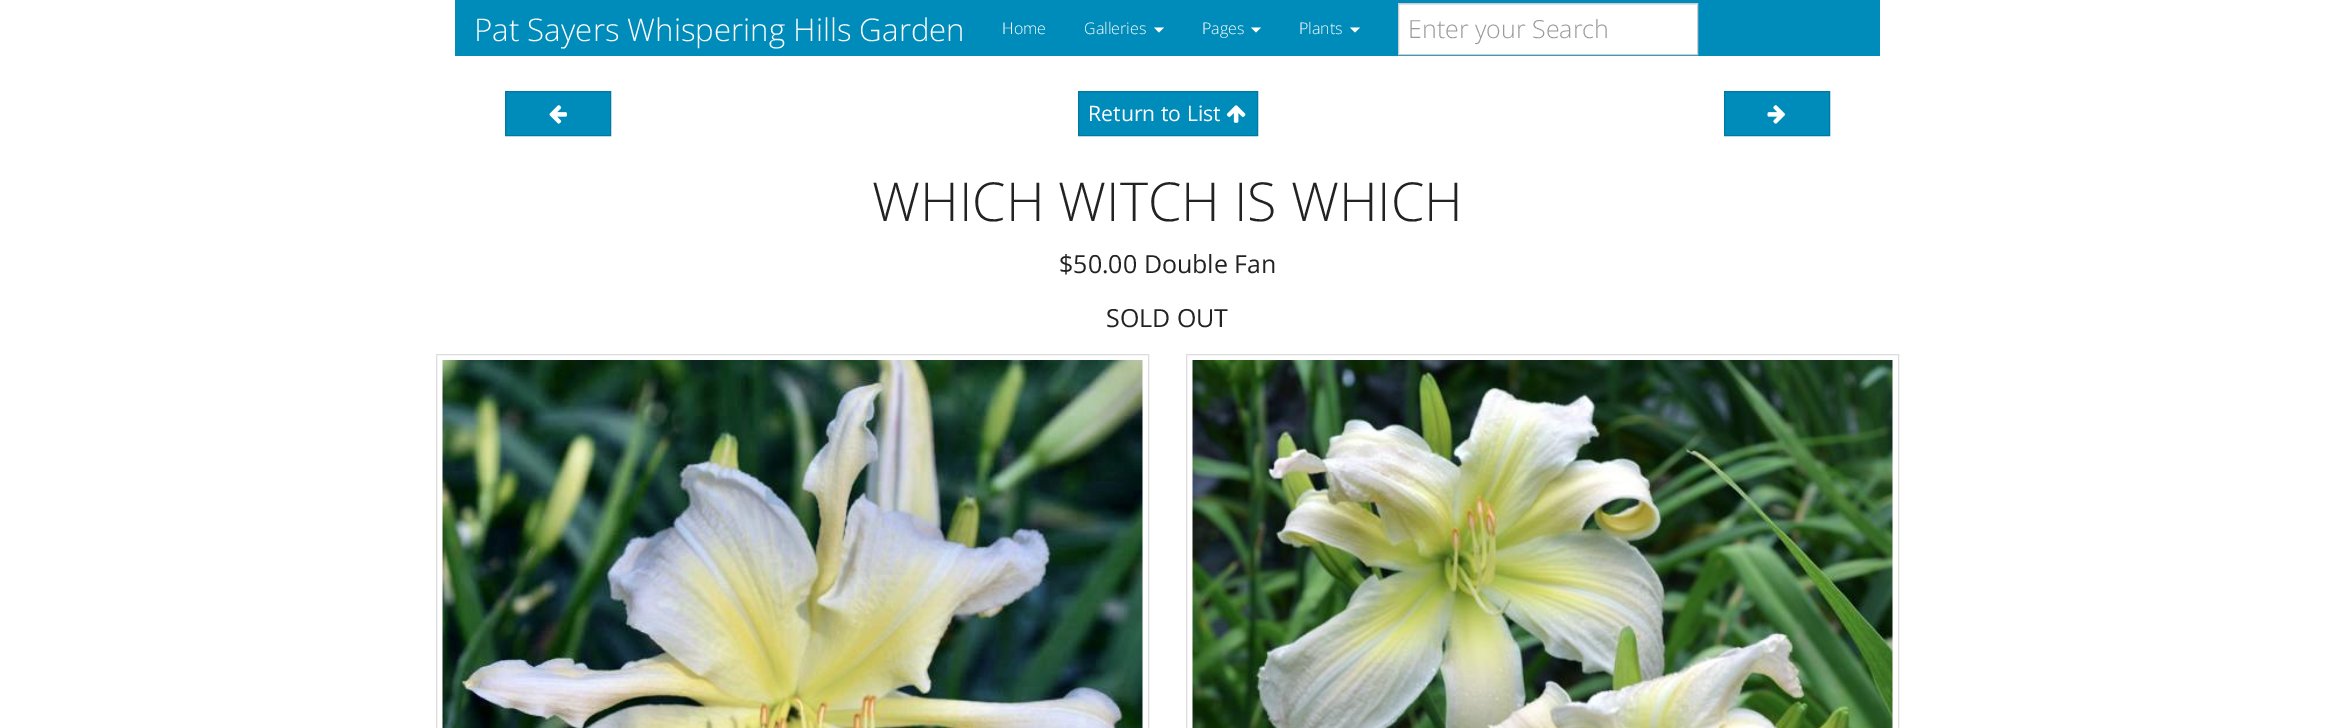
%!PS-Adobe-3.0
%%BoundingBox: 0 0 2334 728
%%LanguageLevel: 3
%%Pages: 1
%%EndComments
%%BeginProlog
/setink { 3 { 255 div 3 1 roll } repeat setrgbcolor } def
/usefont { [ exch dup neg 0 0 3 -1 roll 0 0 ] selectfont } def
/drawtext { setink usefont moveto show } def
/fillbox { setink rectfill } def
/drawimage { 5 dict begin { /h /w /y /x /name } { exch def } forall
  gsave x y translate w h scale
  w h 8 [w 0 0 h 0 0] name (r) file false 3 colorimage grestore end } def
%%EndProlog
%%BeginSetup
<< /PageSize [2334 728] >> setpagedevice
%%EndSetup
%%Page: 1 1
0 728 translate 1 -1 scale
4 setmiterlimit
0 0 2334 728 255 255 255 fillbox
455 0 1425 56 0 140 186 fillbox
(Pat Sayers Whispering Hills Garden) 474 41 /OpenSans-Light 31.25 255 255 255 drawtext
(Home) 1002 34 /OpenSans-Light 16 255 255 255 drawtext
(Galleries) 1084 34 /OpenSans-Light 16 255 255 255 drawtext
1154 27.5 moveto 1164 27.5 lineto 1159 32.5 lineto closepath fill
(Pages) 1202 34 /OpenSans-Light 16 255 255 255 drawtext
1251 27.5 moveto 1261 27.5 lineto 1256 32.5 lineto closepath fill
(Plants) 1299 34 /OpenSans-Light 16 255 255 255 drawtext
1350 27.5 moveto 1360 27.5 lineto 1355 32.5 lineto closepath fill
1399 4 298 50 255 255 255 fillbox
1399 4 297 1 236 236 236 fillbox
204 204 204 setink
1398.5 3.5 299 51 rectstroke
(Enter your Search) 1408 38 /OpenSans-Light 25 153 153 153 drawtext
0 140 186 setink
505.5 91.5 moveto 610.5 91.5 lineto 610.5 135.5 lineto 505.5 135.5 lineto closepath gsave fill grestore
0 121 161 setink
stroke
(assets/img1.rgb) 549 105 18 19 drawimage
0 140 186 setink
1078.5 91.5 moveto 1257.5 91.5 lineto 1257.5 135.5 lineto 1078.5 135.5 lineto closepath gsave fill grestore
0 121 161 setink
stroke
(Return to List) 1088 121 /OpenSans-Regular 21.25 255 255 255 drawtext
(assets/img2.rgb) 1226 105 20 18 drawimage
0 140 186 setink
1724.5 91.5 moveto 1829.5 91.5 lineto 1829.5 135.5 lineto 1724.5 135.5 lineto closepath gsave fill grestore
0 121 161 setink
stroke
(assets/img3.rgb) 1767 105 18 19 drawimage
(WHICH WITCH IS WHICH) 872 221 /OpenSans-Light 53.75 34 34 34 drawtext
($50.00 Double Fan) 1059 273 /OpenSans-Regular 25 34 34 34 drawtext
(SOLD OUT) 1106 327 /OpenSans-Regular 25 34 34 34 drawtext
221 221 221 setink
436.5 354.5 712 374 rectstroke
(assets/img4.rgb) 442 360 701 368 drawimage
1186.5 354.5 712 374 rectstroke
(assets/img5.rgb) 1192 360 701 368 drawimage
showpage
%%EOF
